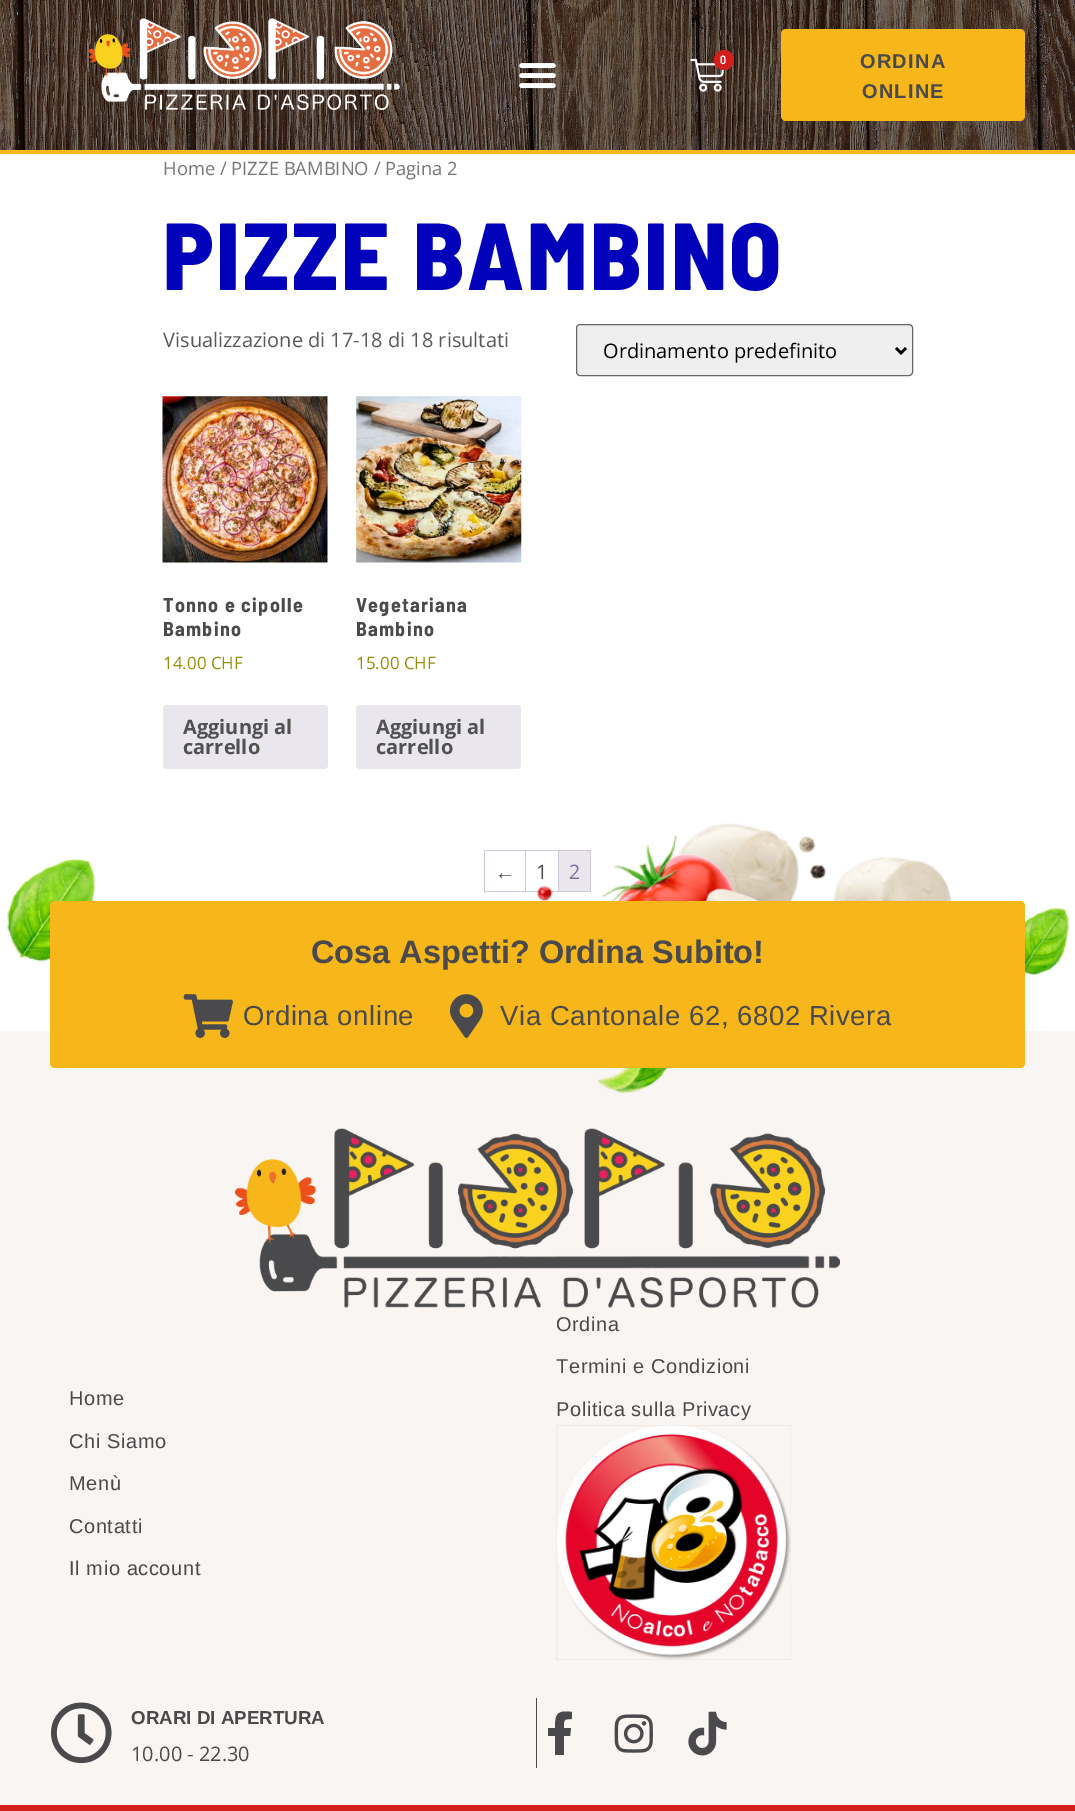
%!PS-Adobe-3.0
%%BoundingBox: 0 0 1075 1811
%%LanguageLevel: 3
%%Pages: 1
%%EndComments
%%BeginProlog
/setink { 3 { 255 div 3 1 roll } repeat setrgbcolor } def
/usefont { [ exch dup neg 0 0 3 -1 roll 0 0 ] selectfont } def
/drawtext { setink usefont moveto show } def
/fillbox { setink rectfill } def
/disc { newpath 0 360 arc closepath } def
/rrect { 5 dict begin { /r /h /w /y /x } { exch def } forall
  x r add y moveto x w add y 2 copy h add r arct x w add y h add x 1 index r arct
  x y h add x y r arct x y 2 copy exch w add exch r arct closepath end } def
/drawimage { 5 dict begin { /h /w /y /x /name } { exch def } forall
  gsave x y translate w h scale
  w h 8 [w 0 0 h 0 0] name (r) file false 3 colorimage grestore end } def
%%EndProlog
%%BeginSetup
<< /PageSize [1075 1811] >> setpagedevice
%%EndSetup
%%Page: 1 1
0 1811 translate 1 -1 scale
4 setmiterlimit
0 0 1075 1811 255 255 255 fillbox
(assets/img1.rgb) 0 0 1075 150 drawimage
0 150 1075 4 247 183 26 fillbox
(assets/img2.rgb) 88 18 312 93 drawimage
(assets/img3.rgb) 690 58 34 34 drawimage
210 31 27 setink
724 60 10 disc fill
/BarlowSemiCondensed-SemiBold 12 usefont
255 255 255 setink
720 64 moveto 1.25 0 (0) ashow
247 183 26 setink
781 29 244 92 5 rrect fill
/LiberationSans-Bold 20 usefont
74 74 76 setink
860 68 moveto 1.25 0 (ORDINA) ashow
862 98 moveto 1.25 0 (ONLINE) ashow
(assets/img4.rgb) 519 63 37 26 drawimage
(Home / PIZZE BAMBINO / Pagina 2) 163 175 /OpenSans-Regular 18.4 118 118 118 drawtext
/BarlowSemiCondensed-ExtraBold 95 usefont
2 2 186 setink
163 290 moveto 2.5 0 (PIZZE BAMBINO) ashow
(Visualizzazione di 17-18 di 18 risultati) 163 347 /OpenSans-Regular 20 89 89 89 drawtext
239 239 239 setink
576.5 324.5 336 51 3.5 rrect gsave fill grestore
102 102 102 setink
stroke
0 0 0 setink
2.5 setlinewidth
896 348 moveto 901 353 lineto 906 348 lineto stroke
(Ordinamento predefinito) 603 358 /OpenSans-Regular 20 0 0 0 drawtext
(assets/img5.rgb) 162 396 166 167 drawimage
/BarlowSemiCondensed-Bold 20 usefont
74 74 76 setink
163 612 moveto 1.25 0 (Tonno e cipolle) ashow
163 636 moveto 1.25 0 (Bambino) ashow
(14.00 CHF) 163 669 /OpenSans-Regular 17 149 142 9 drawtext
233 230 237 setink
163 705 165 64 4 rrect fill
(Aggiungi al) 183 734 /OpenSans-Bold 20 81 81 81 drawtext
(carrello) 183 754 /OpenSans-Bold 20 81 81 81 drawtext
(assets/img6.rgb) 356 396 166 167 drawimage
/BarlowSemiCondensed-Bold 20 usefont
74 74 76 setink
356 612 moveto 1.25 0 (Vegetariana) ashow
356 636 moveto 1.25 0 (Bambino) ashow
(15.00 CHF) 356 669 /OpenSans-Regular 17 149 142 9 drawtext
233 230 237 setink
356 705 165 64 4 rrect fill
(Aggiungi al) 376 734 /OpenSans-Bold 20 81 81 81 drawtext
(carrello) 376 754 /OpenSans-Bold 20 81 81 81 drawtext
484 850 107 1 207 200 216 fillbox
484 891 107 1 207 200 216 fillbox
484 850 1 43 207 200 216 fillbox
525 851 1 40 207 200 216 fillbox
(←) 495 879 /LiberationSans-Regular 20 74 74 76 drawtext
558 851 1 40 207 200 216 fillbox
(1) 536 879 /OpenSans-Regular 20 74 74 76 drawtext
590 851 1 40 207 200 216 fillbox
559 851 31 40 233 230 237 fillbox
(2) 569 879 /OpenSans-Regular 20 129 111 152 drawtext
(assets/img7.rgb) 7 858 88 104 drawimage
0 1031 1075 774 249 245 242 fillbox
(assets/img8.rgb) 537 823 532 270 drawimage
247 183 26 setink
50 901 975 167 5 rrect fill
(Cosa Aspetti? Ordina Subito!) 311 963 /LiberationSans-Bold 32.5 74 74 76 drawtext
(assets/img9.rgb) 183 994 50 44 drawimage
/LiberationSans-Regular 27.5 usefont
243 1025 moveto 0.6 0 (Ordina online) ashow
(assets/img10.rgb) 450 994 33 44 drawimage
500 1025 moveto 0.6 0 (Via Cantonale 62, 6802 Rivera) ashow
(assets/img11.rgb) 235 1128 605 180 drawimage
/LiberationSans-Regular 20 usefont
556 1331 moveto 0.6 0 (Ordina) ashow
556 1373 moveto 0.6 0 (Termini e Condizioni) ashow
556 1416 moveto 0.6 0 (Politica sulla Privacy) ashow
(assets/img12.rgb) 556 1425 235 235 drawimage
69 1405 moveto 0.6 0 (Home) ashow
69 1448 moveto 0.6 0 (Chi Siamo) ashow
69 1490 moveto 0.6 0 (Menù) ashow
69 1533 moveto 0.6 0 (Contatti) ashow
69 1575 moveto 0.6 0 (Il mio account) ashow
536 1698 1 70 74 74 76 fillbox
(assets/img13.rgb) 51 1702 61 62 drawimage
(ORARI DI APERTURA) 131 1724 /LiberationSans-Bold 18.75 74 74 76 drawtext
(10.00 - 22.30) 131 1761 /OpenSans-Regular 20 74 74 76 drawtext
570 1736 moveto 564 1736 lineto 564 1755 lineto 555 1755 lineto 555 1736 lineto 548 1736 lineto 548 1728 lineto 555 1728 lineto 555 1714 557 1710 572 1712 curveto 572 1719 lineto 563 1719 564 1720 564 1728 curveto 571 1728 lineto closepath fill
(assets/img14.rgb) 614 1714 39 39 drawimage
(assets/img15.rgb) 688 1711 39 45 drawimage
0 1805 1075 6 210 31 27 fillbox
showpage
%%EOF
